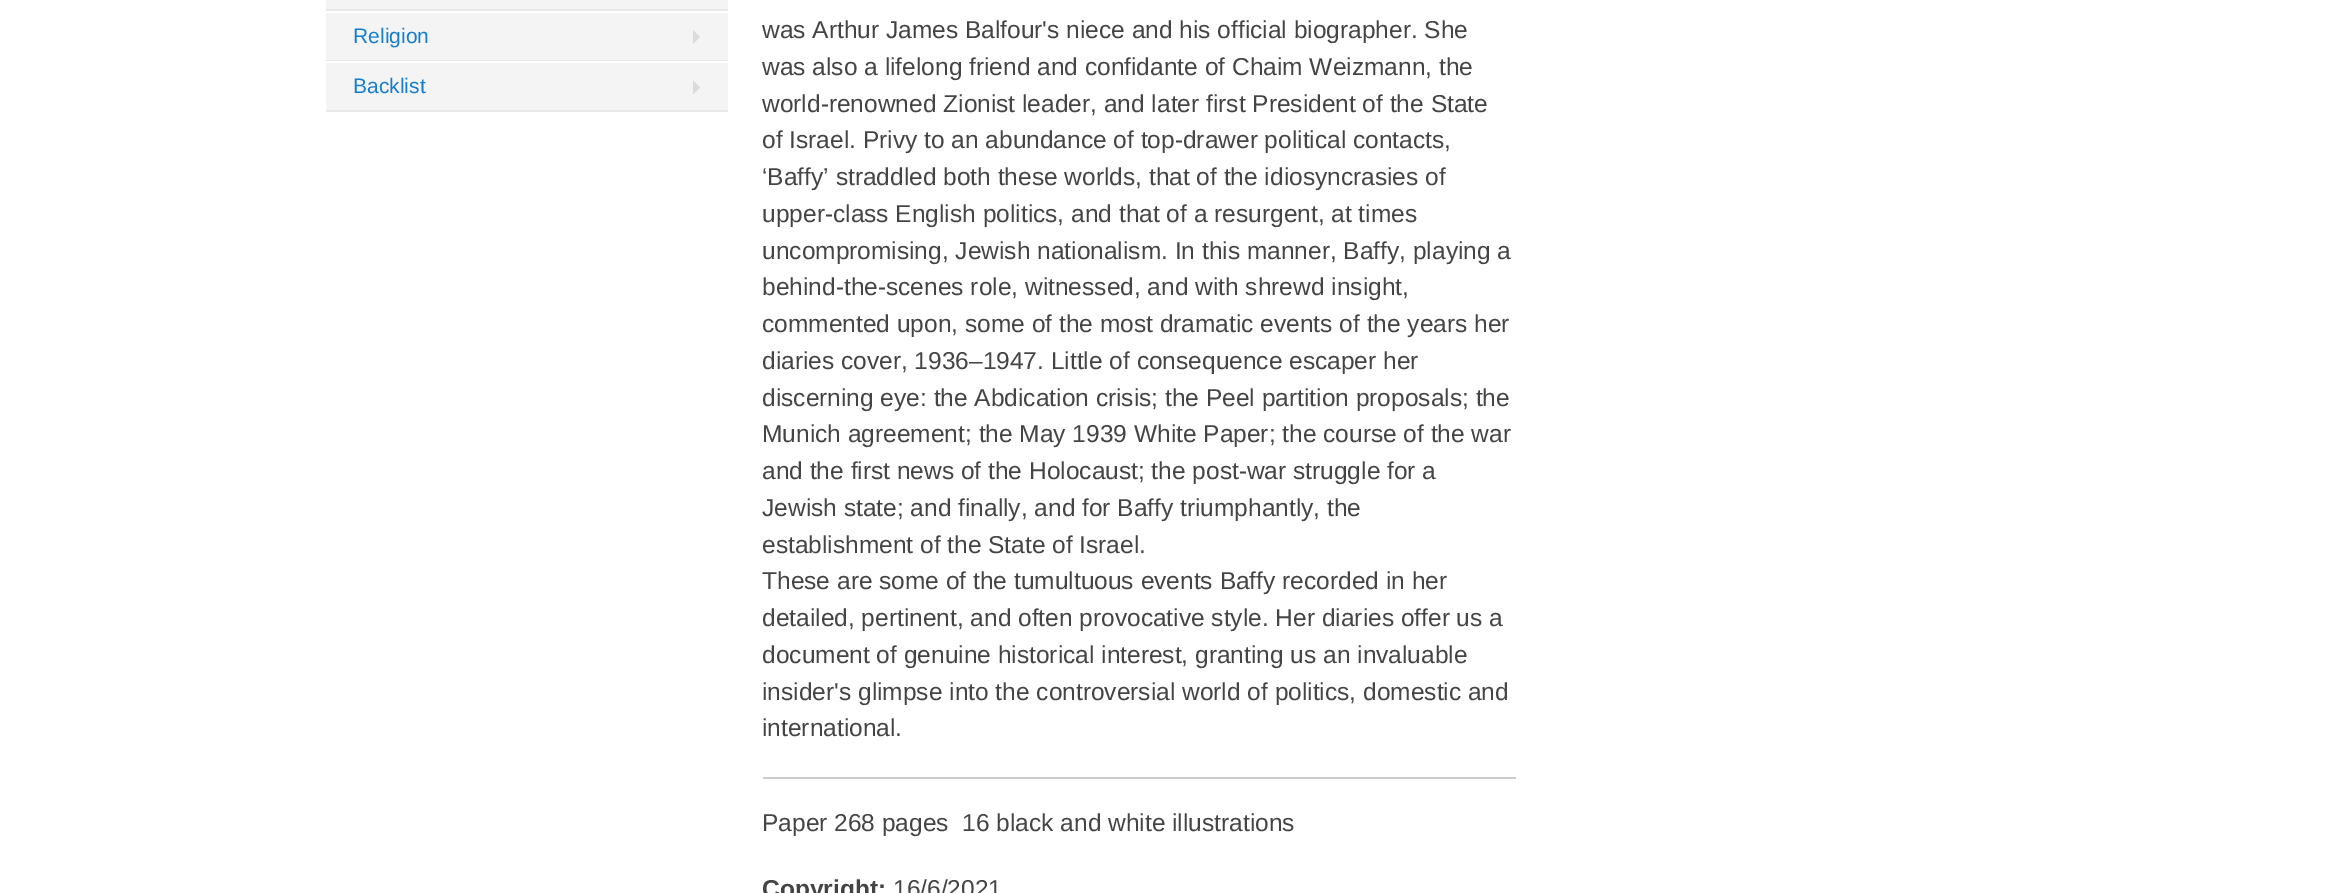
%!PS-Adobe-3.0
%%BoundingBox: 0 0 2328 893
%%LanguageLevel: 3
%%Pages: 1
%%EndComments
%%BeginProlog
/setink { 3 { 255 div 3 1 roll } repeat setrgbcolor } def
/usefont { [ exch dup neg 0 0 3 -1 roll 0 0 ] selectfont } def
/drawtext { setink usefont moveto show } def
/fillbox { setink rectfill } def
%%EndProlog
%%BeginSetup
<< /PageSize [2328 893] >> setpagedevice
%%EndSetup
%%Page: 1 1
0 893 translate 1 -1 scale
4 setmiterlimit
0 0 2328 893 255 255 255 fillbox
326 0 402 9 244 244 244 fillbox
326 9 402 2 232 232 232 fillbox
326 13 402 47 244 244 244 fillbox
326 60 402 1 232 232 232 fillbox
(Religion) 353 43 /LiberationSans-Regular 21 22 126 207 drawtext
219 219 219 setink
693 44 moveto 693 30 lineto 700 37 lineto closepath fill
326 63 402 47 244 244 244 fillbox
326 110 402 2 232 232 232 fillbox
(Backlist) 353 93 /LiberationSans-Regular 21 22 126 207 drawtext
219 219 219 setink
693 94.5 moveto 693 80.5 lineto 700 87.5 lineto closepath fill
(was Arthur James Balfour's niece and his official biographer. She) 762 38 /LiberationSans-Regular 24.5 68 68 68 drawtext
(was also a lifelong friend and confidante of Chaim Weizmann, the) 762 75 /LiberationSans-Regular 24.5 68 68 68 drawtext
(world-renowned Zionist leader, and later first President of the State) 762 112 /LiberationSans-Regular 24.5 68 68 68 drawtext
(of Israel. Privy to an abundance of top-drawer political contacts,) 762 148 /LiberationSans-Regular 24.5 68 68 68 drawtext
(‘Baffy’ straddled both these worlds, that of the idiosyncrasies of) 762 185 /LiberationSans-Regular 24.5 68 68 68 drawtext
(upper-class English politics, and that of a resurgent, at times) 762 222 /LiberationSans-Regular 24.5 68 68 68 drawtext
(uncompromising, Jewish nationalism. In this manner, Baffy, playing a) 762 259 /LiberationSans-Regular 24.5 68 68 68 drawtext
(behind-the-scenes role, witnessed, and with shrewd insight,) 762 295 /LiberationSans-Regular 24.5 68 68 68 drawtext
(commented upon, some of the most dramatic events of the years her) 762 332 /LiberationSans-Regular 24.5 68 68 68 drawtext
(diaries cover, 1936–1947. Little of consequence escaper her) 762 369 /LiberationSans-Regular 24.5 68 68 68 drawtext
(discerning eye: the Abdication crisis; the Peel partition proposals; the) 762 406 /LiberationSans-Regular 24.5 68 68 68 drawtext
(Munich agreement; the May 1939 White Paper; the course of the war) 762 442 /LiberationSans-Regular 24.5 68 68 68 drawtext
(and the first news of the Holocaust; the post-war struggle for a) 762 479 /LiberationSans-Regular 24.5 68 68 68 drawtext
(Jewish state; and finally, and for Baffy triumphantly, the) 762 516 /LiberationSans-Regular 24.5 68 68 68 drawtext
(establishment of the State of Israel.) 762 553 /LiberationSans-Regular 24.5 68 68 68 drawtext
(These are some of the tumultuous events Baffy recorded in her) 762 589 /LiberationSans-Regular 24.5 68 68 68 drawtext
(detailed, pertinent, and often provocative style. Her diaries offer us a) 762 626 /LiberationSans-Regular 24.5 68 68 68 drawtext
(document of genuine historical interest, granting us an invaluable) 762 663 /LiberationSans-Regular 24.5 68 68 68 drawtext
(insider's glimpse into the controversial world of politics, domestic and) 762 700 /LiberationSans-Regular 24.5 68 68 68 drawtext
(international.) 762 736 /LiberationSans-Regular 24.5 68 68 68 drawtext
763 777 753 2 204 204 204 fillbox
(Paper 268 pages  16 black and white illustrations) 762 831 /LiberationSans-Regular 24.5 68 68 68 drawtext
(Copyright:) 762 897 /LiberationSans-Bold 24.5 68 68 68 drawtext
(16/6/2021) 893 897 /LiberationSans-Regular 24.5 68 68 68 drawtext
showpage
%%EOF
